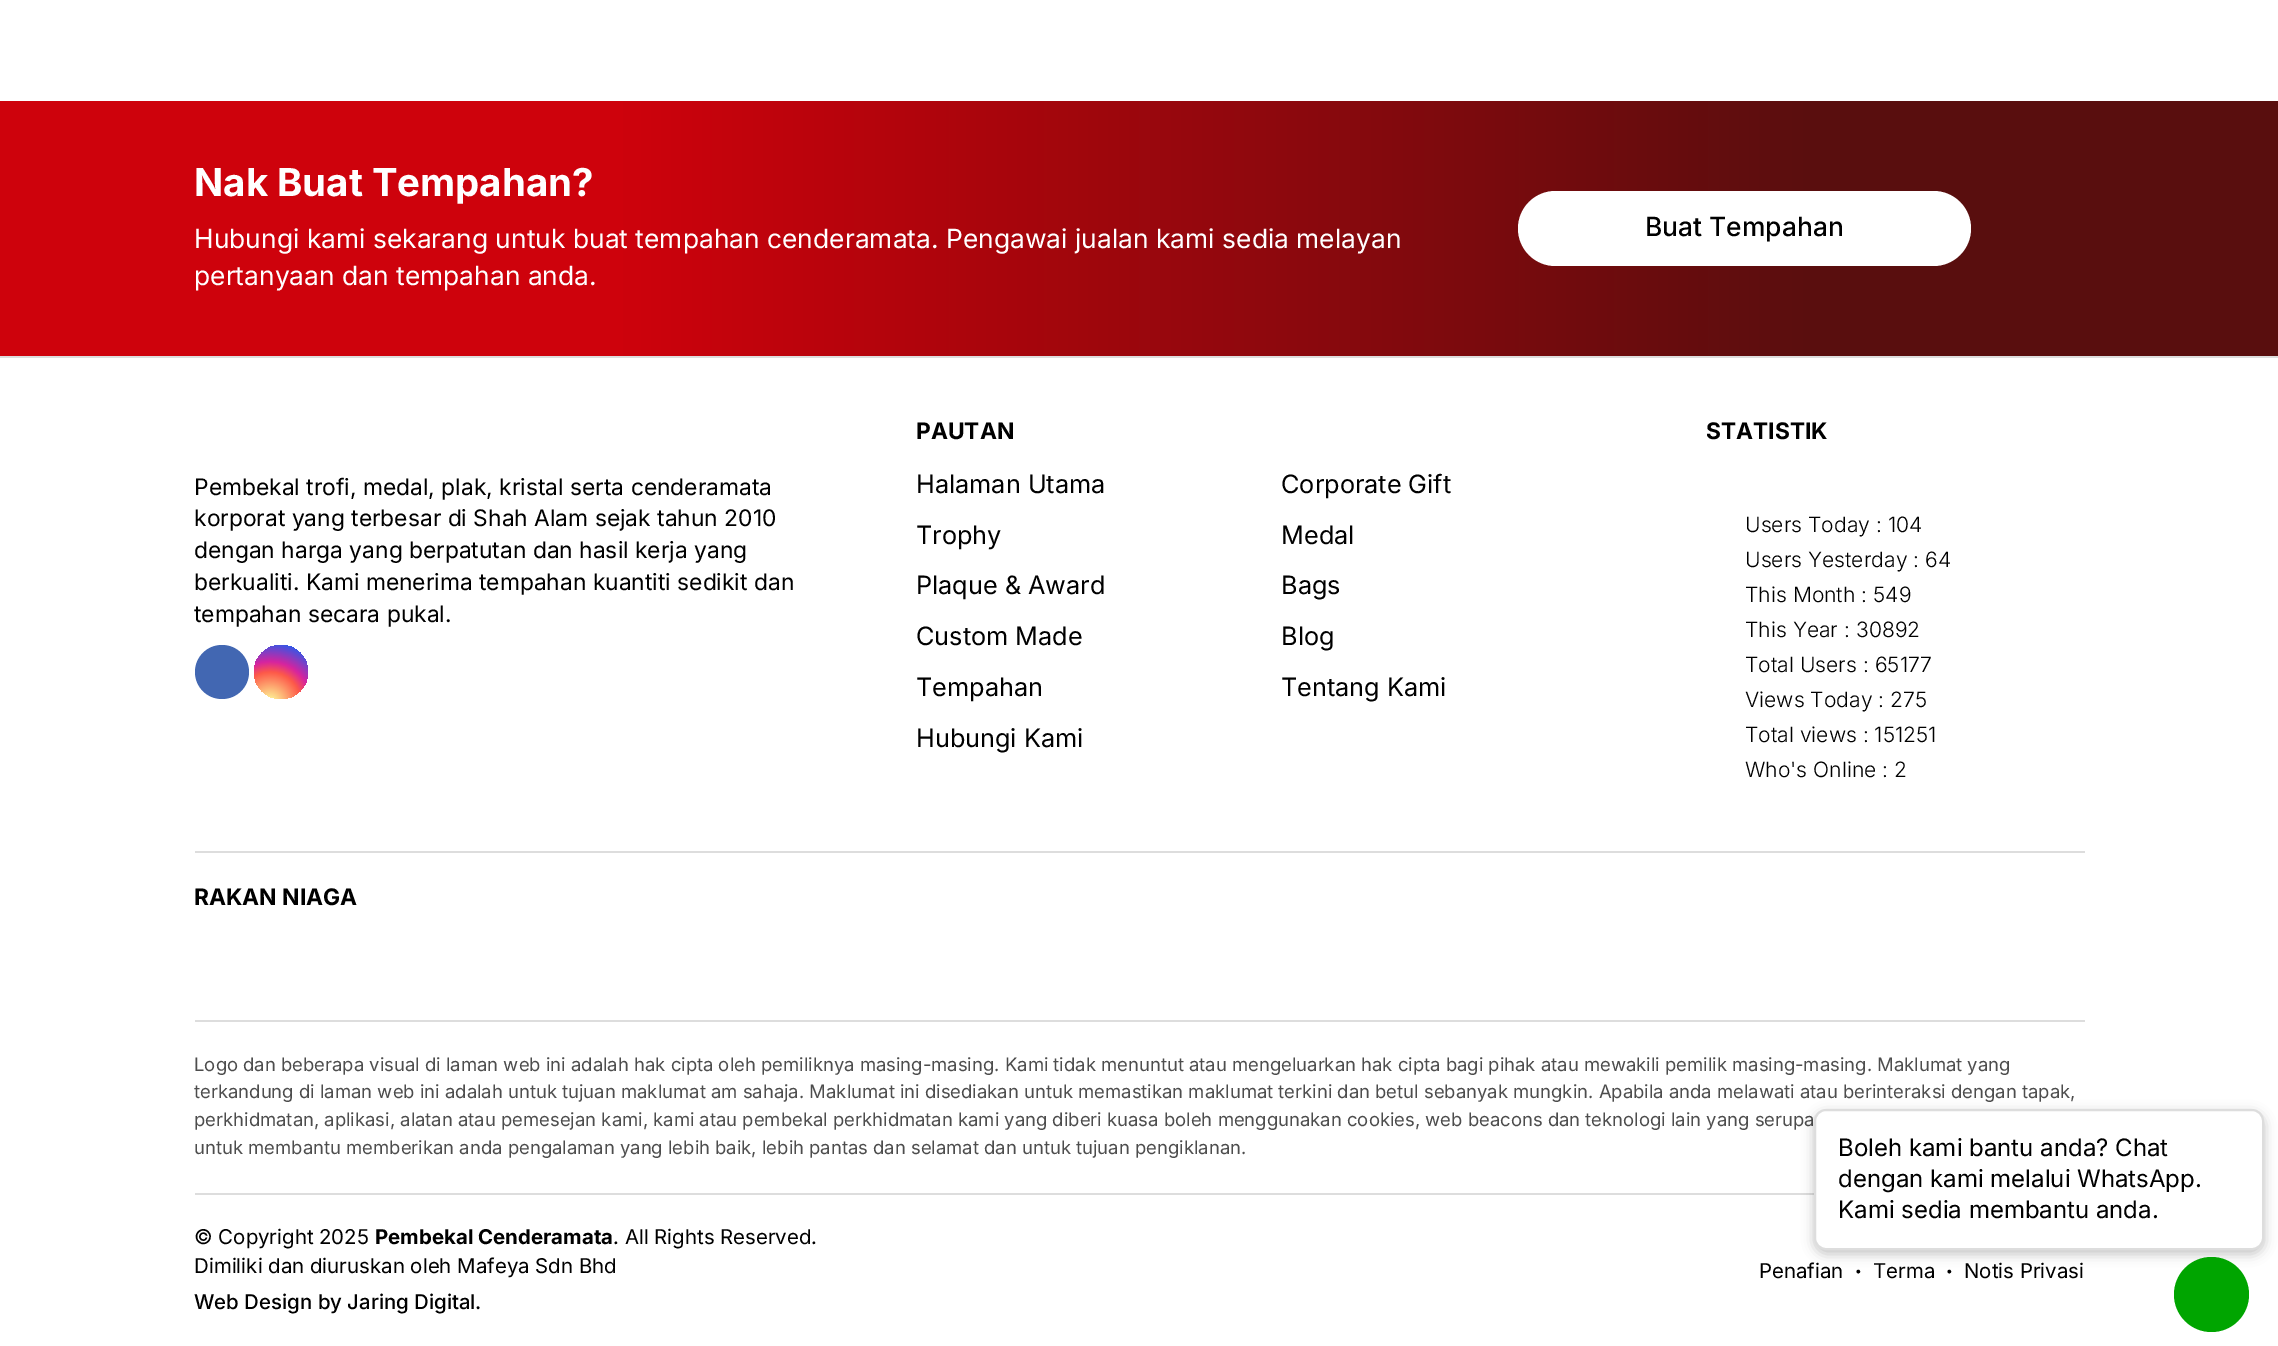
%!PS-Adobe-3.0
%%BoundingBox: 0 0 2278 1346
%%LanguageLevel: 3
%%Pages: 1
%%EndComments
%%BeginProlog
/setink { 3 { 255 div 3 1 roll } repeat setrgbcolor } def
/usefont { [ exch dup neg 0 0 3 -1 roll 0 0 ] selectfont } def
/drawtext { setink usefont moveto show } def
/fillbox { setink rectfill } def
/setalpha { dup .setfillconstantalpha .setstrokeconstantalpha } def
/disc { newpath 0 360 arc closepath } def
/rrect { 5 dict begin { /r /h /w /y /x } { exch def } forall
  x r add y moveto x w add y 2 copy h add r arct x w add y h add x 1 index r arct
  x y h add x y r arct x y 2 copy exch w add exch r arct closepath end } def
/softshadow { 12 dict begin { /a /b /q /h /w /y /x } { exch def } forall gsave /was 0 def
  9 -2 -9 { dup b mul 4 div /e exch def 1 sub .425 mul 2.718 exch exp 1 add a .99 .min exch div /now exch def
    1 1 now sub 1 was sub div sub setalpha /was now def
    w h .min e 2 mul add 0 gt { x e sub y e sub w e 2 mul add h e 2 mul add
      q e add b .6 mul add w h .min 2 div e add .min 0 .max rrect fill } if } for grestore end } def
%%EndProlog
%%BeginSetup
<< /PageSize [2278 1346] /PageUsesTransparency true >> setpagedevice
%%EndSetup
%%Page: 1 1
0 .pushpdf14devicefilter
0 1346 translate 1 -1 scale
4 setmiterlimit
0 0 2278 1346 255 255 255 fillbox
gsave 0 101 moveto 2278 101 lineto 2278 356 lineto 0 356 lineto closepath clip newpath
<< /ShadingType 2 /ColorSpace /DeviceRGB /Coords [0 228 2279 228] /Extend [true true] /Function << /FunctionType 3 /Domain [0 1] /Functions [<< /FunctionType 2 /Domain [0 1] /C0 [0.808 0.008 0.047] /C1 [0.808 0.008 0.047] /N 1 >> << /FunctionType 2 /Domain [0 1] /C0 [0.808 0.008 0.047] /C1 [0.349 0.055 0.055] /N 1 >> << /FunctionType 2 /Domain [0 1] /C0 [0.349 0.055 0.055] /C1 [0.349 0.055 0.055] /N 1 >>] /Bounds [0.27 0.8] /Encode [0 1 0 1 0 1] >> >> shfill grestore
(Nak Buat Tempahan?) 194 196 /Inter-Bold 38.4 255 255 255 drawtext
(Hubungi kami sekarang untuk buat tempahan cenderamata. Pengawai jualan kami sedia melayan) 194 248 /Inter-Regular 26.4 255 255 255 drawtext
(pertanyaan dan tempahan anda.) 194 285 /Inter-Regular 26.4 255 255 255 drawtext
1518 191 453 75 37.5 rrect fill
(Buat Tempahan) 1645 236 /Inter-Medium 26.4 0 0 0 drawtext
0 356 2278 2 221 221 221 fillbox
(Pembekal trofi, medal, plak, kristal serta cenderamata) 194 495 /Inter-Regular 22.8 0 0 0 drawtext
(korporat yang terbesar di Shah Alam sejak tahun 2010) 194 526 /Inter-Regular 22.8 0 0 0 drawtext
(dengan harga yang berpatutan dan hasil kerja yang) 194 558 /Inter-Regular 22.8 0 0 0 drawtext
(berkualiti. Kami menerima tempahan kuantiti sedikit dan) 194 590 /Inter-Regular 22.8 0 0 0 drawtext
(tempahan secara pukal.) 194 622 /Inter-Regular 22.8 0 0 0 drawtext
66 103 178 setink
222 672 27 disc fill
gsave 281 672 27 disc clip newpath 270 703 translate 69 69 scale
<< /ShadingType 3 /ColorSpace /DeviceRGB /Coords [0 0 0 0 0 1] /Extend [true true] /Function << /FunctionType 3 /Domain [0 1] /Functions [<< /FunctionType 2 /Domain [0 1] /C0 [0.992 0.957 0.592] /C1 [0.992 0.957 0.592] /N 1 >> << /FunctionType 2 /Domain [0 1] /C0 [0.992 0.957 0.592] /C1 [0.992 0.349 0.286] /N 1 >> << /FunctionType 2 /Domain [0 1] /C0 [0.992 0.349 0.286] /C1 [0.839 0.141 0.624] /N 1 >> << /FunctionType 2 /Domain [0 1] /C0 [0.839 0.141 0.624] /C1 [0.157 0.353 0.922] /N 1 >> << /FunctionType 2 /Domain [0 1] /C0 [0.157 0.353 0.922] /C1 [0.157 0.353 0.922] /N 1 >>] /Bounds [0.05 0.45 0.6 0.9] /Encode [0 1 0 1 0 1 0 1 0 1] >> >> shfill grestore
(PAUTAN) 916 439 /Inter-Bold 22.8 0 0 0 drawtext
(Halaman Utama) 916 493 /Inter-Regular 25.25 0 0 0 drawtext
(Corporate Gift) 1281 493 /Inter-Regular 25.25 0 0 0 drawtext
(Trophy) 916 544 /Inter-Regular 25.25 0 0 0 drawtext
(Medal) 1281 544 /Inter-Regular 25.25 0 0 0 drawtext
(Plaque & Award) 916 594 /Inter-Regular 25.25 0 0 0 drawtext
(Bags) 1281 594 /Inter-Regular 25.25 0 0 0 drawtext
(Custom Made) 916 645 /Inter-Regular 25.25 0 0 0 drawtext
(Blog) 1281 645 /Inter-Regular 25.25 0 0 0 drawtext
(Tempahan) 916 696 /Inter-Regular 25.25 0 0 0 drawtext
(Tentang Kami) 1281 696 /Inter-Regular 25.25 0 0 0 drawtext
(Hubungi Kami) 916 747 /Inter-Regular 25.25 0 0 0 drawtext
(STATISTIK) 1706 439 /Inter-Bold 22.8 0 0 0 drawtext
(Users Today : 104) 1745 532 /Inter-Light 21.1 0 0 0 drawtext
(Users Yesterday : 64) 1745 567 /Inter-Light 21.1 0 0 0 drawtext
(This Month : 549) 1745 602 /Inter-Light 21.1 0 0 0 drawtext
(This Year : 30892) 1745 637 /Inter-Light 21.1 0 0 0 drawtext
(Total Users : 65177) 1745 672 /Inter-Light 21.1 0 0 0 drawtext
(Views Today : 275) 1745 707 /Inter-Light 21.1 0 0 0 drawtext
(Total views : 151251) 1745 742 /Inter-Light 21.1 0 0 0 drawtext
(Who's Online : 2) 1745 777 /Inter-Light 21.1 0 0 0 drawtext
195 851 1890 2 221 221 221 fillbox
(RAKAN NIAGA) 194 905 /Inter-Bold 22.8 0 0 0 drawtext
195 1020 1890 2 221 221 221 fillbox
(Logo dan beberapa visual di laman web ini adalah hak cipta oleh pemiliknya masing-masing. Kami tidak menuntut atau mengeluarkan hak cipta bagi pihak atau mewakili pemilik masing-masing. Maklumat yang) 194 1071 /Inter-Regular 18.48 77 77 77 drawtext
(terkandung di laman web ini adalah untuk tujuan maklumat am sahaja. Maklumat ini disediakan untuk memastikan maklumat terkini dan betul sebanyak mungkin. Apabila anda melawati atau berinteraksi dengan tapak,) 194 1098 /Inter-Regular 18.48 77 77 77 drawtext
(perkhidmatan, aplikasi, alatan atau pemesejan kami, kami atau pembekal perkhidmatan kami yang diberi kuasa boleh menggunakan cookies, web beacons dan teknologi lain yang serupa) 194 1126 /Inter-Regular 18.48 77 77 77 drawtext
(untuk membantu memberikan anda pengalaman yang lebih baik, lebih pantas dan selamat dan untuk tujuan pengiklanan.) 194 1154 /Inter-Regular 18.48 77 77 77 drawtext
195 1193 1619 2 221 221 221 fillbox
(© Copyright 2025) 194 1244 /Inter-Regular 20.4 0 0 0 drawtext
(Pembekal Cenderamata) 375 1244 /Inter-Bold 20.4 0 0 0 drawtext
(. All Rights Reserved.) 613 1244 /Inter-Regular 20.4 0 0 0 drawtext
(Dimiliki dan diuruskan oleh Mafeya Sdn Bhd) 194 1273 /Inter-Regular 20.4 0 0 0 drawtext
(Web Design by Jaring Digital.) 194 1309 /Inter-Medium 20.4 0 0 0 drawtext
(Penafian) 1759 1278 /Inter-Regular 20.4 0 0 0 drawtext
(•) 1855 1275 /Inter-Regular 12 0 0 0 drawtext
(Terma) 1873 1278 /Inter-Regular 20.4 0 0 0 drawtext
(•) 1946 1275 /Inter-Regular 12 0 0 0 drawtext
(Notis Privasi) 1964 1278 /Inter-Regular 20.4 0 0 0 drawtext
1814 1113 450 141 12 6 0.24 softshadow
255 255 255 setink
1815 1110 448 139 11 rrect gsave fill grestore
221 221 221 setink
2 setlinewidth
stroke
(Boleh kami bantu anda? Chat) 1838 1156 /Inter-Regular 24 0 0 0 drawtext
(dengan kami melalui WhatsApp.) 1838 1187 /Inter-Regular 24 0 0 0 drawtext
(Kami sedia membantu anda.) 1838 1218 /Inter-Regular 24 0 0 0 drawtext
0 165 0 setink
2211.5 1294.5 37.5 disc fill
.poppdf14devicefilter showpage
%%EOF
